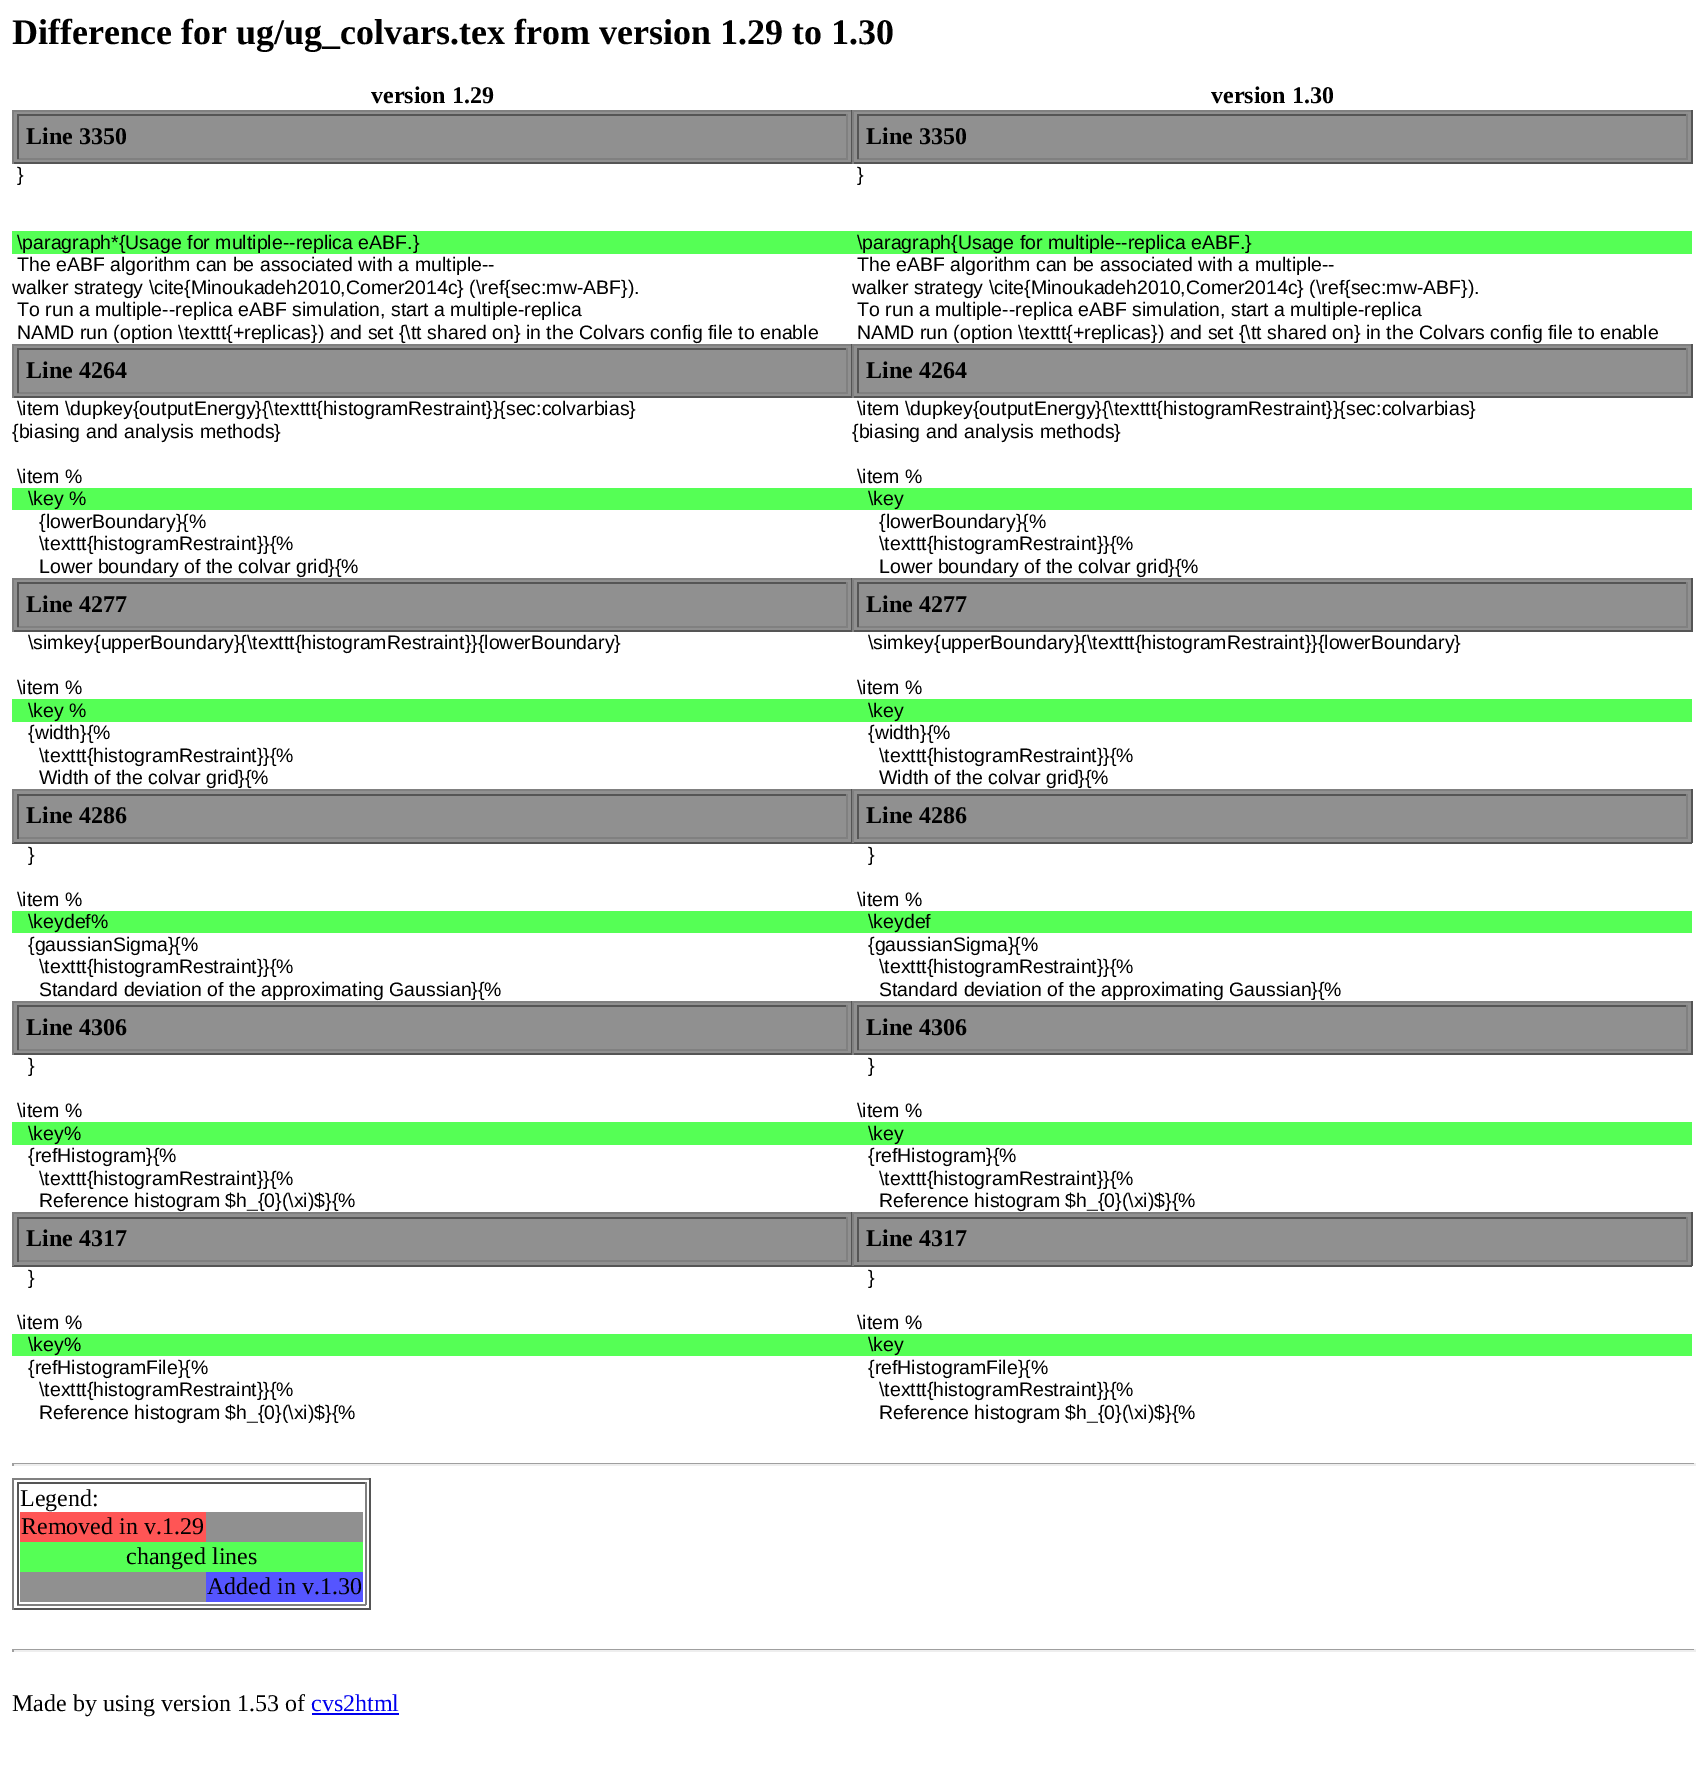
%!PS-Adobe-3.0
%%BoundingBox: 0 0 1704 1774
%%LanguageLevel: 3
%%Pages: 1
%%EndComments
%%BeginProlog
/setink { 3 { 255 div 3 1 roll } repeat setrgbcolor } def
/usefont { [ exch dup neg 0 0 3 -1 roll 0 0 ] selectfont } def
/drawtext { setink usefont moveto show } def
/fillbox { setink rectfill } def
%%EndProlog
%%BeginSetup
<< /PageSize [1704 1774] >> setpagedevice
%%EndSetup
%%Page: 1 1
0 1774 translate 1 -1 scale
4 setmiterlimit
0 0 1704 1774 255 255 255 fillbox
(Difference for ug/ug_colvars.tex from version 1.29 to 1.30) 12 44 /LiberationSerif-Bold 36 0 0 0 drawtext
(version 1.29) 371 103 /LiberationSerif-Bold 24 0 0 0 drawtext
(version 1.30) 1211 103 /LiberationSerif-Bold 24 0 0 0 drawtext
14 112 1677 50 144 144 144 fillbox
12 110 1680 2 128 128 128 fillbox
851 110 1 54 85 85 85 fillbox
12 162 840 2 85 85 85 fillbox
12 110 2 54 128 128 128 fillbox
17 114 831 2 85 85 85 fillbox
846 114 2 45 128 128 128 fillbox
17 158 831 2 128 128 128 fillbox
17 114 2 45 85 85 85 fillbox
(Line 3350) 26 144 /LiberationSerif-Bold 24 0 0 0 drawtext
1691 110 2 54 85 85 85 fillbox
852 162 840 2 85 85 85 fillbox
852 110 2 54 128 128 128 fillbox
857 114 831 2 85 85 85 fillbox
1686 114 2 45 128 128 128 fillbox
857 158 831 2 128 128 128 fillbox
857 114 2 45 85 85 85 fillbox
(Line 3350) 866 144 /LiberationSerif-Bold 24 0 0 0 drawtext
(}) 17 181 /LiberationSans-Regular 19.5 0 0 0 drawtext
(}) 857 181 /LiberationSans-Regular 19.5 0 0 0 drawtext
12 231 1680 23 85 255 85 fillbox
(\\paragraph*{Usage for multiple--replica eABF.}) 17 249 /LiberationSans-Regular 19.5 0 0 0 drawtext
(\\paragraph{Usage for multiple--replica eABF.}) 857 249 /LiberationSans-Regular 19.5 0 0 0 drawtext
(The eABF algorithm can be associated with a multiple--) 17 271 /LiberationSans-Regular 19.5 0 0 0 drawtext
(walker strategy \\cite{Minoukadeh2010,Comer2014c} \(\\ref{sec:mw-ABF}\).) 12 294 /LiberationSans-Regular 19.5 0 0 0 drawtext
(The eABF algorithm can be associated with a multiple--) 857 271 /LiberationSans-Regular 19.5 0 0 0 drawtext
(walker strategy \\cite{Minoukadeh2010,Comer2014c} \(\\ref{sec:mw-ABF}\).) 852 294 /LiberationSans-Regular 19.5 0 0 0 drawtext
(To run a multiple--replica eABF simulation, start a multiple-replica) 17 316 /LiberationSans-Regular 19.5 0 0 0 drawtext
(To run a multiple--replica eABF simulation, start a multiple-replica) 857 316 /LiberationSans-Regular 19.5 0 0 0 drawtext
(NAMD run \(option \\texttt{+replicas}\) and set {\\tt shared on} in the Colvars config file to enable) 17 339 /LiberationSans-Regular 19.5 0 0 0 drawtext
(NAMD run \(option \\texttt{+replicas}\) and set {\\tt shared on} in the Colvars config file to enable) 857 339 /LiberationSans-Regular 19.5 0 0 0 drawtext
14 346 1677 50 144 144 144 fillbox
12 344 1680 2 128 128 128 fillbox
851 344 1 54 85 85 85 fillbox
12 396 840 2 85 85 85 fillbox
12 344 2 54 128 128 128 fillbox
17 348 831 2 85 85 85 fillbox
846 348 2 45 128 128 128 fillbox
17 392 831 2 128 128 128 fillbox
17 348 2 45 85 85 85 fillbox
(Line 4264) 26 378 /LiberationSerif-Bold 24 0 0 0 drawtext
1691 344 2 54 85 85 85 fillbox
852 396 840 2 85 85 85 fillbox
852 344 2 54 128 128 128 fillbox
857 348 831 2 85 85 85 fillbox
1686 348 2 45 128 128 128 fillbox
857 392 831 2 128 128 128 fillbox
857 348 2 45 85 85 85 fillbox
(Line 4264) 866 378 /LiberationSerif-Bold 24 0 0 0 drawtext
(\\item \\dupkey{outputEnergy}{\\texttt{histogramRestraint}}{sec:colvarbias}) 17 415 /LiberationSans-Regular 19.5 0 0 0 drawtext
({biasing and analysis methods}) 12 438 /LiberationSans-Regular 19.5 0 0 0 drawtext
(\\item \\dupkey{outputEnergy}{\\texttt{histogramRestraint}}{sec:colvarbias}) 857 415 /LiberationSans-Regular 19.5 0 0 0 drawtext
({biasing and analysis methods}) 852 438 /LiberationSans-Regular 19.5 0 0 0 drawtext
(\\item %) 17 483 /LiberationSans-Regular 19.5 0 0 0 drawtext
(\\item %) 857 483 /LiberationSans-Regular 19.5 0 0 0 drawtext
12 488 1680 22 85 255 85 fillbox
(\\key %) 28 505 /LiberationSans-Regular 19.5 0 0 0 drawtext
(\\key) 868 505 /LiberationSans-Regular 19.5 0 0 0 drawtext
({lowerBoundary}{%) 39 528 /LiberationSans-Regular 19.5 0 0 0 drawtext
({lowerBoundary}{%) 879 528 /LiberationSans-Regular 19.5 0 0 0 drawtext
(\\texttt{histogramRestraint}}{%) 39 550 /LiberationSans-Regular 19.5 0 0 0 drawtext
(\\texttt{histogramRestraint}}{%) 879 550 /LiberationSans-Regular 19.5 0 0 0 drawtext
(Lower boundary of the colvar grid}{%) 39 573 /LiberationSans-Regular 19.5 0 0 0 drawtext
(Lower boundary of the colvar grid}{%) 879 573 /LiberationSans-Regular 19.5 0 0 0 drawtext
14 580 1677 50 144 144 144 fillbox
12 578 1680 2 128 128 128 fillbox
851 578 1 54 85 85 85 fillbox
12 630 840 2 85 85 85 fillbox
12 578 2 54 128 128 128 fillbox
17 582 831 2 85 85 85 fillbox
846 582 2 45 128 128 128 fillbox
17 626 831 2 128 128 128 fillbox
17 582 2 45 85 85 85 fillbox
(Line 4277) 26 612 /LiberationSerif-Bold 24 0 0 0 drawtext
1691 578 2 54 85 85 85 fillbox
852 630 840 2 85 85 85 fillbox
852 578 2 54 128 128 128 fillbox
857 582 831 2 85 85 85 fillbox
1686 582 2 45 128 128 128 fillbox
857 626 831 2 128 128 128 fillbox
857 582 2 45 85 85 85 fillbox
(Line 4277) 866 612 /LiberationSerif-Bold 24 0 0 0 drawtext
(\\simkey{upperBoundary}{\\texttt{histogramRestraint}}{lowerBoundary}) 28 649 /LiberationSans-Regular 19.5 0 0 0 drawtext
(\\simkey{upperBoundary}{\\texttt{histogramRestraint}}{lowerBoundary}) 868 649 /LiberationSans-Regular 19.5 0 0 0 drawtext
(\\item %) 17 694 /LiberationSans-Regular 19.5 0 0 0 drawtext
(\\item %) 857 694 /LiberationSans-Regular 19.5 0 0 0 drawtext
12 699 1680 23 85 255 85 fillbox
(\\key %) 28 717 /LiberationSans-Regular 19.5 0 0 0 drawtext
(\\key) 868 717 /LiberationSans-Regular 19.5 0 0 0 drawtext
({width}{%) 28 739 /LiberationSans-Regular 19.5 0 0 0 drawtext
({width}{%) 868 739 /LiberationSans-Regular 19.5 0 0 0 drawtext
(\\texttt{histogramRestraint}}{%) 39 762 /LiberationSans-Regular 19.5 0 0 0 drawtext
(\\texttt{histogramRestraint}}{%) 879 762 /LiberationSans-Regular 19.5 0 0 0 drawtext
(Width of the colvar grid}{%) 39 784 /LiberationSans-Regular 19.5 0 0 0 drawtext
(Width of the colvar grid}{%) 879 784 /LiberationSans-Regular 19.5 0 0 0 drawtext
14 791 1677 51 144 144 144 fillbox
12 789 1680 2 128 128 128 fillbox
851 789 1 54 85 85 85 fillbox
12 842 840 2 85 85 85 fillbox
12 789 2 54 128 128 128 fillbox
17 794 831 2 85 85 85 fillbox
846 794 2 45 128 128 128 fillbox
17 837 831 2 128 128 128 fillbox
17 794 2 45 85 85 85 fillbox
(Line 4286) 26 823 /LiberationSerif-Bold 24 0 0 0 drawtext
1691 789 2 54 85 85 85 fillbox
852 842 840 2 85 85 85 fillbox
852 789 2 54 128 128 128 fillbox
857 794 831 2 85 85 85 fillbox
1686 794 2 45 128 128 128 fillbox
857 837 831 2 128 128 128 fillbox
857 794 2 45 85 85 85 fillbox
(Line 4286) 866 823 /LiberationSerif-Bold 24 0 0 0 drawtext
(}) 28 861 /LiberationSans-Regular 19.5 0 0 0 drawtext
(}) 868 861 /LiberationSans-Regular 19.5 0 0 0 drawtext
(\\item %) 17 906 /LiberationSans-Regular 19.5 0 0 0 drawtext
(\\item %) 857 906 /LiberationSans-Regular 19.5 0 0 0 drawtext
12 911 1680 22 85 255 85 fillbox
(\\keydef%) 28 928 /LiberationSans-Regular 19.5 0 0 0 drawtext
(\\keydef) 868 928 /LiberationSans-Regular 19.5 0 0 0 drawtext
({gaussianSigma}{%) 28 951 /LiberationSans-Regular 19.5 0 0 0 drawtext
({gaussianSigma}{%) 868 951 /LiberationSans-Regular 19.5 0 0 0 drawtext
(\\texttt{histogramRestraint}}{%) 39 973 /LiberationSans-Regular 19.5 0 0 0 drawtext
(\\texttt{histogramRestraint}}{%) 879 973 /LiberationSans-Regular 19.5 0 0 0 drawtext
(Standard deviation of the approximating Gaussian}{%) 39 996 /LiberationSans-Regular 19.5 0 0 0 drawtext
(Standard deviation of the approximating Gaussian}{%) 879 996 /LiberationSans-Regular 19.5 0 0 0 drawtext
14 1003 1677 50 144 144 144 fillbox
12 1001 1680 2 128 128 128 fillbox
851 1001 1 54 85 85 85 fillbox
12 1053 840 2 85 85 85 fillbox
12 1001 2 54 128 128 128 fillbox
17 1005 831 2 85 85 85 fillbox
846 1005 2 45 128 128 128 fillbox
17 1049 831 2 128 128 128 fillbox
17 1005 2 45 85 85 85 fillbox
(Line 4306) 26 1035 /LiberationSerif-Bold 24 0 0 0 drawtext
1691 1001 2 54 85 85 85 fillbox
852 1053 840 2 85 85 85 fillbox
852 1001 2 54 128 128 128 fillbox
857 1005 831 2 85 85 85 fillbox
1686 1005 2 45 128 128 128 fillbox
857 1049 831 2 128 128 128 fillbox
857 1005 2 45 85 85 85 fillbox
(Line 4306) 866 1035 /LiberationSerif-Bold 24 0 0 0 drawtext
(}) 28 1072 /LiberationSans-Regular 19.5 0 0 0 drawtext
(}) 868 1072 /LiberationSans-Regular 19.5 0 0 0 drawtext
(\\item %) 17 1117 /LiberationSans-Regular 19.5 0 0 0 drawtext
(\\item %) 857 1117 /LiberationSans-Regular 19.5 0 0 0 drawtext
12 1122 1680 23 85 255 85 fillbox
(\\key%) 28 1140 /LiberationSans-Regular 19.5 0 0 0 drawtext
(\\key) 868 1140 /LiberationSans-Regular 19.5 0 0 0 drawtext
({refHistogram}{%) 28 1162 /LiberationSans-Regular 19.5 0 0 0 drawtext
({refHistogram}{%) 868 1162 /LiberationSans-Regular 19.5 0 0 0 drawtext
(\\texttt{histogramRestraint}}{%) 39 1185 /LiberationSans-Regular 19.5 0 0 0 drawtext
(\\texttt{histogramRestraint}}{%) 879 1185 /LiberationSans-Regular 19.5 0 0 0 drawtext
(Reference histogram $h_{0}\(\\xi\)$}{%) 39 1207 /LiberationSans-Regular 19.5 0 0 0 drawtext
(Reference histogram $h_{0}\(\\xi\)$}{%) 879 1207 /LiberationSans-Regular 19.5 0 0 0 drawtext
14 1214 1677 51 144 144 144 fillbox
12 1212 1680 2 128 128 128 fillbox
851 1212 1 54 85 85 85 fillbox
12 1265 840 2 85 85 85 fillbox
12 1212 2 54 128 128 128 fillbox
17 1217 831 2 85 85 85 fillbox
846 1217 2 45 128 128 128 fillbox
17 1260 831 2 128 128 128 fillbox
17 1217 2 45 85 85 85 fillbox
(Line 4317) 26 1246 /LiberationSerif-Bold 24 0 0 0 drawtext
1691 1212 2 54 85 85 85 fillbox
852 1265 840 2 85 85 85 fillbox
852 1212 2 54 128 128 128 fillbox
857 1217 831 2 85 85 85 fillbox
1686 1217 2 45 128 128 128 fillbox
857 1260 831 2 128 128 128 fillbox
857 1217 2 45 85 85 85 fillbox
(Line 4317) 866 1246 /LiberationSerif-Bold 24 0 0 0 drawtext
(}) 28 1284 /LiberationSans-Regular 19.5 0 0 0 drawtext
(}) 868 1284 /LiberationSans-Regular 19.5 0 0 0 drawtext
(\\item %) 17 1329 /LiberationSans-Regular 19.5 0 0 0 drawtext
(\\item %) 857 1329 /LiberationSans-Regular 19.5 0 0 0 drawtext
12 1334 1680 22 85 255 85 fillbox
(\\key%) 28 1351 /LiberationSans-Regular 19.5 0 0 0 drawtext
(\\key) 868 1351 /LiberationSans-Regular 19.5 0 0 0 drawtext
({refHistogramFile}{%) 28 1374 /LiberationSans-Regular 19.5 0 0 0 drawtext
({refHistogramFile}{%) 868 1374 /LiberationSans-Regular 19.5 0 0 0 drawtext
(\\texttt{histogramRestraint}}{%) 39 1396 /LiberationSans-Regular 19.5 0 0 0 drawtext
(\\texttt{histogramRestraint}}{%) 879 1396 /LiberationSans-Regular 19.5 0 0 0 drawtext
(Reference histogram $h_{0}\(\\xi\)$}{%) 39 1419 /LiberationSans-Regular 19.5 0 0 0 drawtext
(Reference histogram $h_{0}\(\\xi\)$}{%) 879 1419 /LiberationSans-Regular 19.5 0 0 0 drawtext
12 1463 1683 1 159 159 159 fillbox
1694 1463 2 3 238 238 238 fillbox
12 1464 1683 2 238 238 238 fillbox
12 1463 2 3 159 159 159 fillbox
12 1478 359 2 128 128 128 fillbox
369 1478 2 132 85 85 85 fillbox
12 1608 359 2 85 85 85 fillbox
12 1478 2 132 128 128 128 fillbox
17 1482 349 2 85 85 85 fillbox
365 1482 2 123 128 128 128 fillbox
17 1604 349 2 128 128 128 fillbox
17 1482 2 123 85 85 85 fillbox
(Legend:) 20 1506 /LiberationSerif-Regular 24 0 0 0 drawtext
20 1512 186 30 255 85 85 fillbox
(Removed in v.1.29) 21 1534 /LiberationSerif-Regular 24 0 0 0 drawtext
206 1512 157 30 144 144 144 fillbox
20 1542 343 30 85 255 85 fillbox
(changed lines) 126 1564 /LiberationSerif-Regular 24 0 0 0 drawtext
20 1572 186 30 144 144 144 fillbox
206 1572 157 30 85 85 255 fillbox
(Added in v.1.30) 207 1594 /LiberationSerif-Regular 24 0 0 0 drawtext
12 1649 1683 1 159 159 159 fillbox
1694 1649 2 3 238 238 238 fillbox
12 1650 1683 2 238 238 238 fillbox
12 1649 2 3 159 159 159 fillbox
(Made by using version 1.53 of) 12 1711 /LiberationSerif-Regular 24 0 0 0 drawtext
(cvs2html) 311 1711 /LiberationSerif-Regular 24 0 0 238 drawtext
312 1713 87 2 0 0 238 fillbox
showpage
%%EOF
